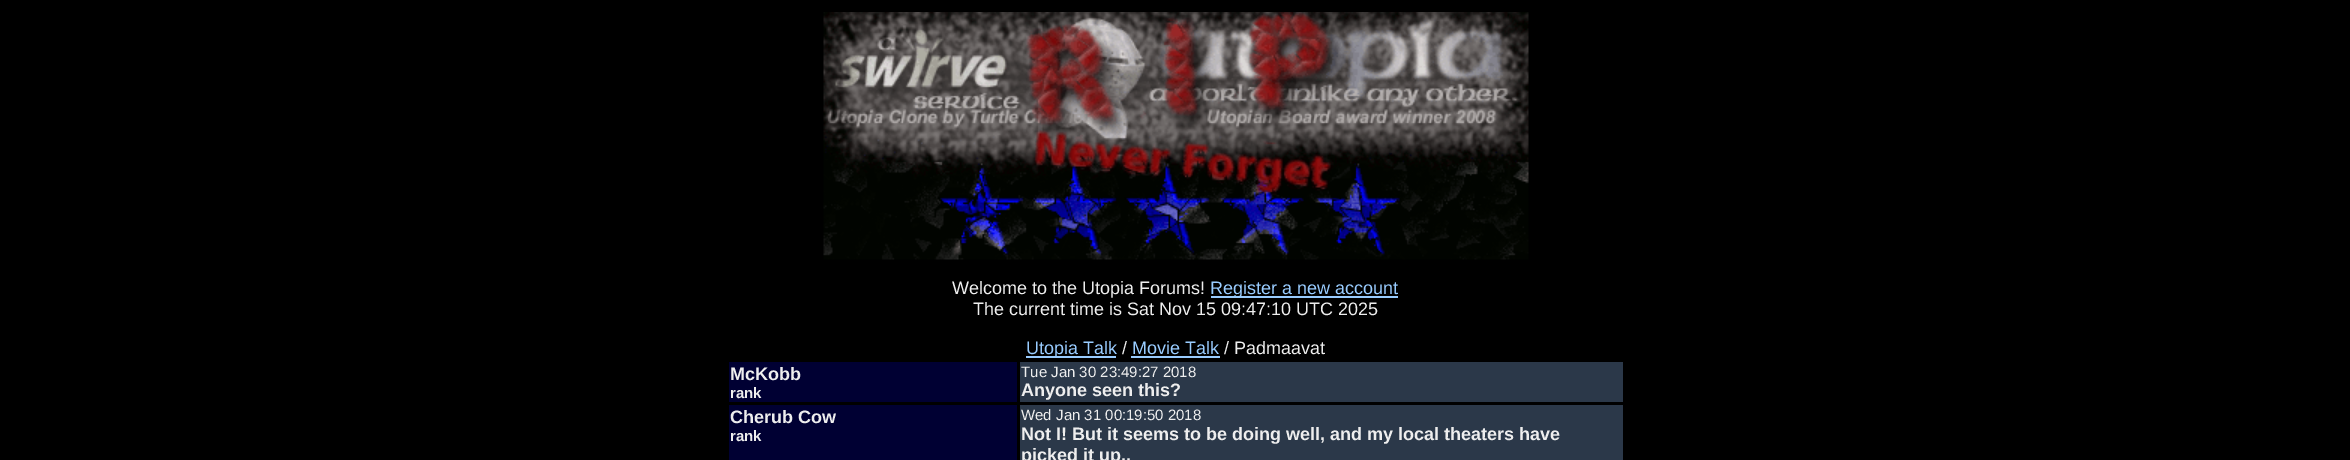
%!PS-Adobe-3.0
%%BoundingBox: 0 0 2350 460
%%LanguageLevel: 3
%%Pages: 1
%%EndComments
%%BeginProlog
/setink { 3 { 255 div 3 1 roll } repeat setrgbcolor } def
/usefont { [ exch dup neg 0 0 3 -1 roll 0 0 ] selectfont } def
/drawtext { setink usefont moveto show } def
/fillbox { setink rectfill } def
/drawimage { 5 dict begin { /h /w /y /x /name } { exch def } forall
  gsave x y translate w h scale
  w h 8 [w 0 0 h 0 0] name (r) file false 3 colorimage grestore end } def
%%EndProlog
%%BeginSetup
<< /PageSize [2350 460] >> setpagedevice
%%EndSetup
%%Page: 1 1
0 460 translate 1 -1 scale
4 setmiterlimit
0 0 2350 460 0 0 0 fillbox
(assets/img1.rgb) 823 12 706 248 drawimage
(Welcome to the Utopia Forums!) 952 294 /LiberationSans-Regular 18 238 238 238 drawtext
1211 296 187 2 153 204 255 fillbox
(Register a new account) 1210 294 /LiberationSans-Regular 18 153 204 255 drawtext
(The current time is Sat Nov 15 09:47:10 UTC 2025) 973 315 /LiberationSans-Regular 18 238 238 238 drawtext
1026 356 90 2 153 204 255 fillbox
(Utopia Talk) 1026 354 /LiberationSans-Regular 18 153 204 255 drawtext
(/) 1122 354 /LiberationSans-Regular 18 238 238 238 drawtext
(Movie Talk) 1132 354 /LiberationSans-Regular 18 153 204 255 drawtext
1131 356 89 2 153 204 255 fillbox
(/ Padmaavat) 1224 354 /LiberationSans-Regular 18 238 238 238 drawtext
729 362 288 40 0 0 51 fillbox
(McKobb) 730 380 /LiberationSans-Bold 18 238 238 238 drawtext
(rank) 730 398 /LiberationSans-Bold 15 238 238 238 drawtext
1020 362 603 40 43 56 73 fillbox
(Tue Jan 30 23:49:27 2018) 1021 377 /LiberationSans-Regular 15 238 238 238 drawtext
(Anyone seen this?) 1021 396 /LiberationSans-Bold 18 238 238 238 drawtext
729 405 288 55 0 0 51 fillbox
(Cherub Cow) 730 423 /LiberationSans-Bold 18 238 238 238 drawtext
(rank) 730 441 /LiberationSans-Bold 15 238 238 238 drawtext
1020 405 603 55 43 56 73 fillbox
(Wed Jan 31 00:19:50 2018) 1021 420 /LiberationSans-Regular 15 238 238 238 drawtext
(Not I! But it seems to be doing well, and my local theaters have) 1021 440 /LiberationSans-Bold 18 238 238 238 drawtext
(picked it up..) 1021 461 /LiberationSans-Bold 18 238 238 238 drawtext
showpage
%%EOF
